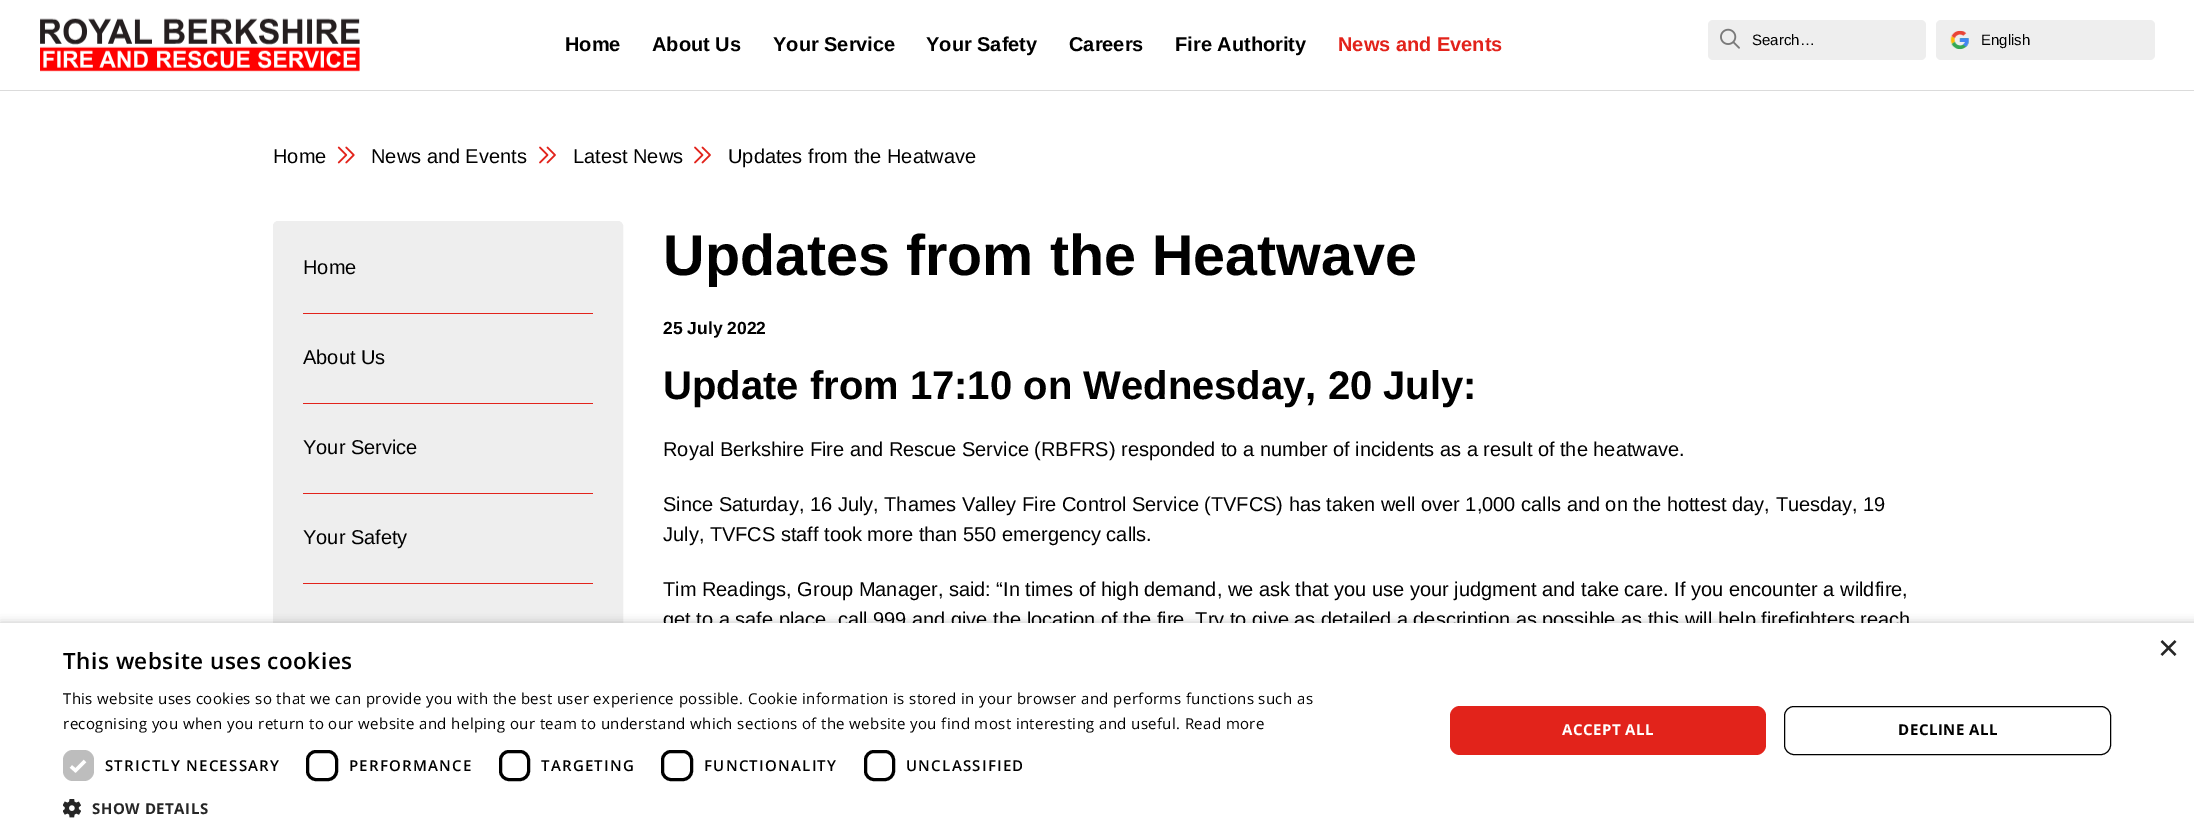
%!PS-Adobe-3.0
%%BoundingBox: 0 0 2194 838
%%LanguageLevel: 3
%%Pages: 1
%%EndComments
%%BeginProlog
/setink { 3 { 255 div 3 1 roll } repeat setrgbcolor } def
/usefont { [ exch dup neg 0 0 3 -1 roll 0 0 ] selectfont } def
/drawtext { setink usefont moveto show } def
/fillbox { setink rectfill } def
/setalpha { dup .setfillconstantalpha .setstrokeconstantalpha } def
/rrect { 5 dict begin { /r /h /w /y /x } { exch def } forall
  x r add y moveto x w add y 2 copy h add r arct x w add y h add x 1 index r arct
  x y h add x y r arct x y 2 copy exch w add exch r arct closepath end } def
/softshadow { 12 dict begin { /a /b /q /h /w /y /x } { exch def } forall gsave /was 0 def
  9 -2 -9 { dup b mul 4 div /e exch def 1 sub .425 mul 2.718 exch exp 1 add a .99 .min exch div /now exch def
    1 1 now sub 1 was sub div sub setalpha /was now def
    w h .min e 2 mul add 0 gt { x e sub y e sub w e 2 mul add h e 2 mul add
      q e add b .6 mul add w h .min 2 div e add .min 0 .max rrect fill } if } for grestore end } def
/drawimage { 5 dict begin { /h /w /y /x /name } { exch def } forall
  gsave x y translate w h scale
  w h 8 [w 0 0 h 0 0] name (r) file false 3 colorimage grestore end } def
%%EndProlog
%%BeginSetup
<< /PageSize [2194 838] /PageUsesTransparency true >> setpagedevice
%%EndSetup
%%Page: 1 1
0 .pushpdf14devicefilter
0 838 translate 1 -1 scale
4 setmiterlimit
0 0 2194 838 255 255 255 fillbox
0 90 2194 1 219 219 219 fillbox
(assets/img1.rgb) 40 18 320 54 drawimage
(Home) 565 51 /LiberationSans-Bold 20 0 0 0 drawtext
(About Us) 652 51 /LiberationSans-Bold 20 0 0 0 drawtext
(Your Service) 773 51 /LiberationSans-Bold 20 0 0 0 drawtext
(Your Safety) 926 51 /LiberationSans-Bold 20 0 0 0 drawtext
(Careers) 1069 51 /LiberationSans-Bold 20 0 0 0 drawtext
(Fire Authority) 1175 51 /LiberationSans-Bold 20 0 0 0 drawtext
(News and Events) 1338 51 /LiberationSans-Bold 20 226 35 27 drawtext
238 238 238 setink
1708 20 218 40 5 rrect fill
(assets/img2.rgb) 1720 28 20 21 drawimage
(Search…) 1752 45 /LiberationSans-Regular 15 0 0 0 drawtext
238 238 238 setink
1936 20 219 40 5 rrect fill
(assets/img3.rgb) 1950 30 19 20 drawimage
(English) 1981 45 /LiberationSans-Regular 15 0 0 0 drawtext
(Home) 273 163 /LiberationSans-Regular 20 0 0 0 drawtext
(assets/img4.rgb) 337 146 18 18 drawimage
(News and Events) 371 163 /LiberationSans-Regular 20 0 0 0 drawtext
(assets/img5.rgb) 539 146 17 18 drawimage
(Latest News) 573 163 /LiberationSans-Regular 20 0 0 0 drawtext
(assets/img5.rgb) 694 146 17 18 drawimage
(Updates from the Heatwave) 728 163 /LiberationSans-Regular 20 0 0 0 drawtext
238 238 238 setink
273.5 221.5 349 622 4.5 rrect gsave fill grestore
stroke
(Home) 303 274 /LiberationSans-Regular 20 0 0 0 drawtext
303 313 290 1 226 35 27 fillbox
(About Us) 303 364 /LiberationSans-Regular 20 0 0 0 drawtext
303 403 290 1 226 35 27 fillbox
(Your Service) 303 454 /LiberationSans-Regular 20 0 0 0 drawtext
303 493 290 1 226 35 27 fillbox
(Your Safety) 303 544 /LiberationSans-Regular 20 0 0 0 drawtext
303 583 290 1 226 35 27 fillbox
(Updates from the Heatwave) 663 275 /LiberationSans-Bold 57.5 0 0 0 drawtext
(25 July 2022) 663 334 /LiberationSans-Bold 17.5 0 0 0 drawtext
(Update from 17:10 on Wednesday, 20 July:) 663 399 /LiberationSans-Bold 40 0 0 0 drawtext
(Royal Berkshire Fire and Rescue Service \(RBFRS\) responded to a number of incidents as a result of the heatwave.) 663 456 /LiberationSans-Regular 20 0 0 0 drawtext
(Since Saturday, 16 July, Thames Valley Fire Control Service \(TVFCS\) has taken well over 1,000 calls and on the hottest day, Tuesday, 19) 663 511 /LiberationSans-Regular 20 0 0 0 drawtext
(July, TVFCS staff took more than 550 emergency calls.) 663 541 /LiberationSans-Regular 20 0 0 0 drawtext
(Tim Readings, Group Manager, said: “In times of high demand, we ask that you use your judgment and take care. If you encounter a wildfire,) 663 596 /LiberationSans-Regular 20 0 0 0 drawtext
(get to a safe place, call 999 and give the location of the fire. Try to give as detailed a description as possible as this will help firefighters reach) 663 626 /LiberationSans-Regular 20 0 0 0 drawtext
1 625 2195 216 0 5 0.35 softshadow
0 623 2194 215 255 255 255 fillbox
(×) 2158 660 /LiberationSans-Regular 36 38 38 38 drawtext
/OpenSans-SemiBold 22.5 usefont
0 0 0 setink
63 669 moveto 0.5 0 (This website uses cookies) ashow
/OpenSans-Regular 15 usefont
63 704 moveto 0.38 0 (This website uses cookies so that we can provide you with the best user experience possible. Cookie information is stored in your browser and performs functions such as) ashow
63 729 moveto 0.38 0 (recognising you when you return to our website and helping our team to understand which sections of the website you find most interesting and useful. Read more) ashow
189 189 189 setink
63 750 31 31 10 rrect fill
255 255 255 setink
3.3 setlinewidth
71 766.5 moveto 75.5 770.5 lineto 85 761 lineto stroke
/OpenSans-SemiBold 15 usefont
0 0 0 setink
105 771 moveto 1.25 0 (STRICTLY NECESSARY) ashow
3 setlinewidth
307.5 751.5 29 28 8.5 rrect stroke
349 771 moveto 1.25 0 (PERFORMANCE) ashow
500.5 751.5 28 28 8.5 rrect stroke
541 771 moveto 1.25 0 (TARGETING) ashow
662.5 751.5 29 28 8.5 rrect stroke
704 771 moveto 1.25 0 (FUNCTIONALITY) ashow
865.5 751.5 28 28 8.5 rrect stroke
906 771 moveto 1.25 0 (UNCLASSIFIED) ashow
(assets/img6.rgb) 63 799 18 19 drawimage
/OpenSans-Bold 15 usefont
38 38 38 setink
92 814 moveto 0.5 0 (SHOW DETAILS) ashow
226 35 27 setink
1450 706 316 49 10 rrect fill
255 255 255 setink
1562 735 moveto 0.5 0 (ACCEPT ALL) ashow
0 0 0 setink
1 setlinewidth
1784.5 706.5 326 48 9.5 rrect stroke
1898 735 moveto 0.5 0 (DECLINE ALL) ashow
.poppdf14devicefilter showpage
%%EOF
